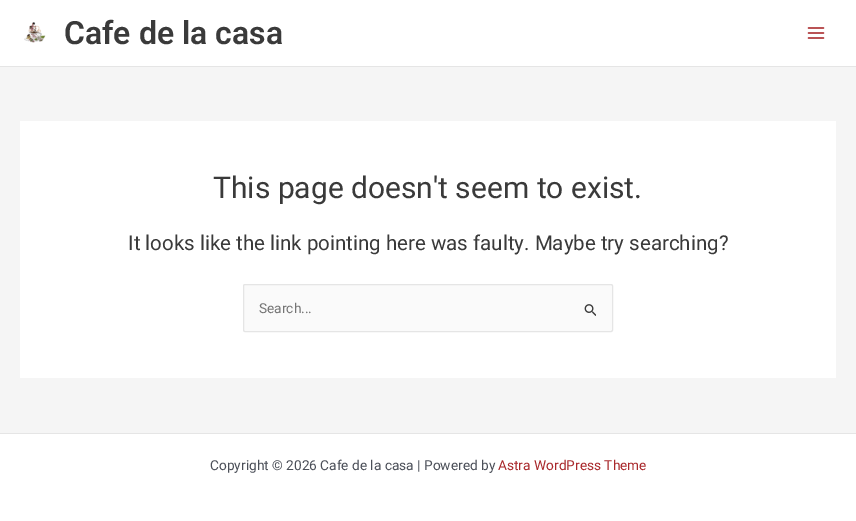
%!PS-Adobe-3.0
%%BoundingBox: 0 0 856 521
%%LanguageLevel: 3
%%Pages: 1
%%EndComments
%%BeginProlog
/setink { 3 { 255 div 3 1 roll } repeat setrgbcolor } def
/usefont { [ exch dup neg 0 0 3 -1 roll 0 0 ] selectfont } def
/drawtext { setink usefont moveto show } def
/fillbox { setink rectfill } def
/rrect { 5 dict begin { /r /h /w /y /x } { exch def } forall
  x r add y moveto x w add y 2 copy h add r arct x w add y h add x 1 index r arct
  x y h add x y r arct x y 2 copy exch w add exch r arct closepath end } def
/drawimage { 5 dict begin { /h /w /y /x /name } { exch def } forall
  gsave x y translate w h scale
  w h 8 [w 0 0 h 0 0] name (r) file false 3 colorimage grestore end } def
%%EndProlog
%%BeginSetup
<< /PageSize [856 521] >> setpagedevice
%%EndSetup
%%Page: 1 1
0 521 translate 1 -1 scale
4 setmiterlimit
0 0 856 521 245 245 245 fillbox
0 0 856 66 255 255 255 fillbox
0 66 856 1 229 229 229 fillbox
(assets/img1.rgb) 24 22 22 21 drawimage
(Cafe de la casa) 64 44 /Roboto-SemiBold 32 58 58 58 drawtext
(assets/img2.rgb) 807 27 18 12 drawimage
20 121 816 257 255 255 255 fillbox
(This page doesn't seem to exist.) 213 198 /Roboto-Regular 30 58 58 58 drawtext
(It looks like the link pointing here was faulty. Maybe try searching?) 128 250 /Roboto-Regular 20.5 58 58 58 drawtext
250 250 250 setink
243.5 284.5 369 47 1.5 rrect gsave fill grestore
229 229 229 setink
stroke
(Search...) 259 313 /Roboto-Regular 13.7 117 117 117 drawtext
(assets/img3.rgb) 584 304 12 12 drawimage
0 434 856 87 255 255 255 fillbox
0 433 856 1 229 229 229 fillbox
(Copyright © 2026 Cafe de la casa | Powered by) 210 470 /Roboto-Regular 13.7 75 79 88 drawtext
(Astra WordPress Theme) 498 470 /Roboto-Regular 13.7 169 40 43 drawtext
showpage
%%EOF
